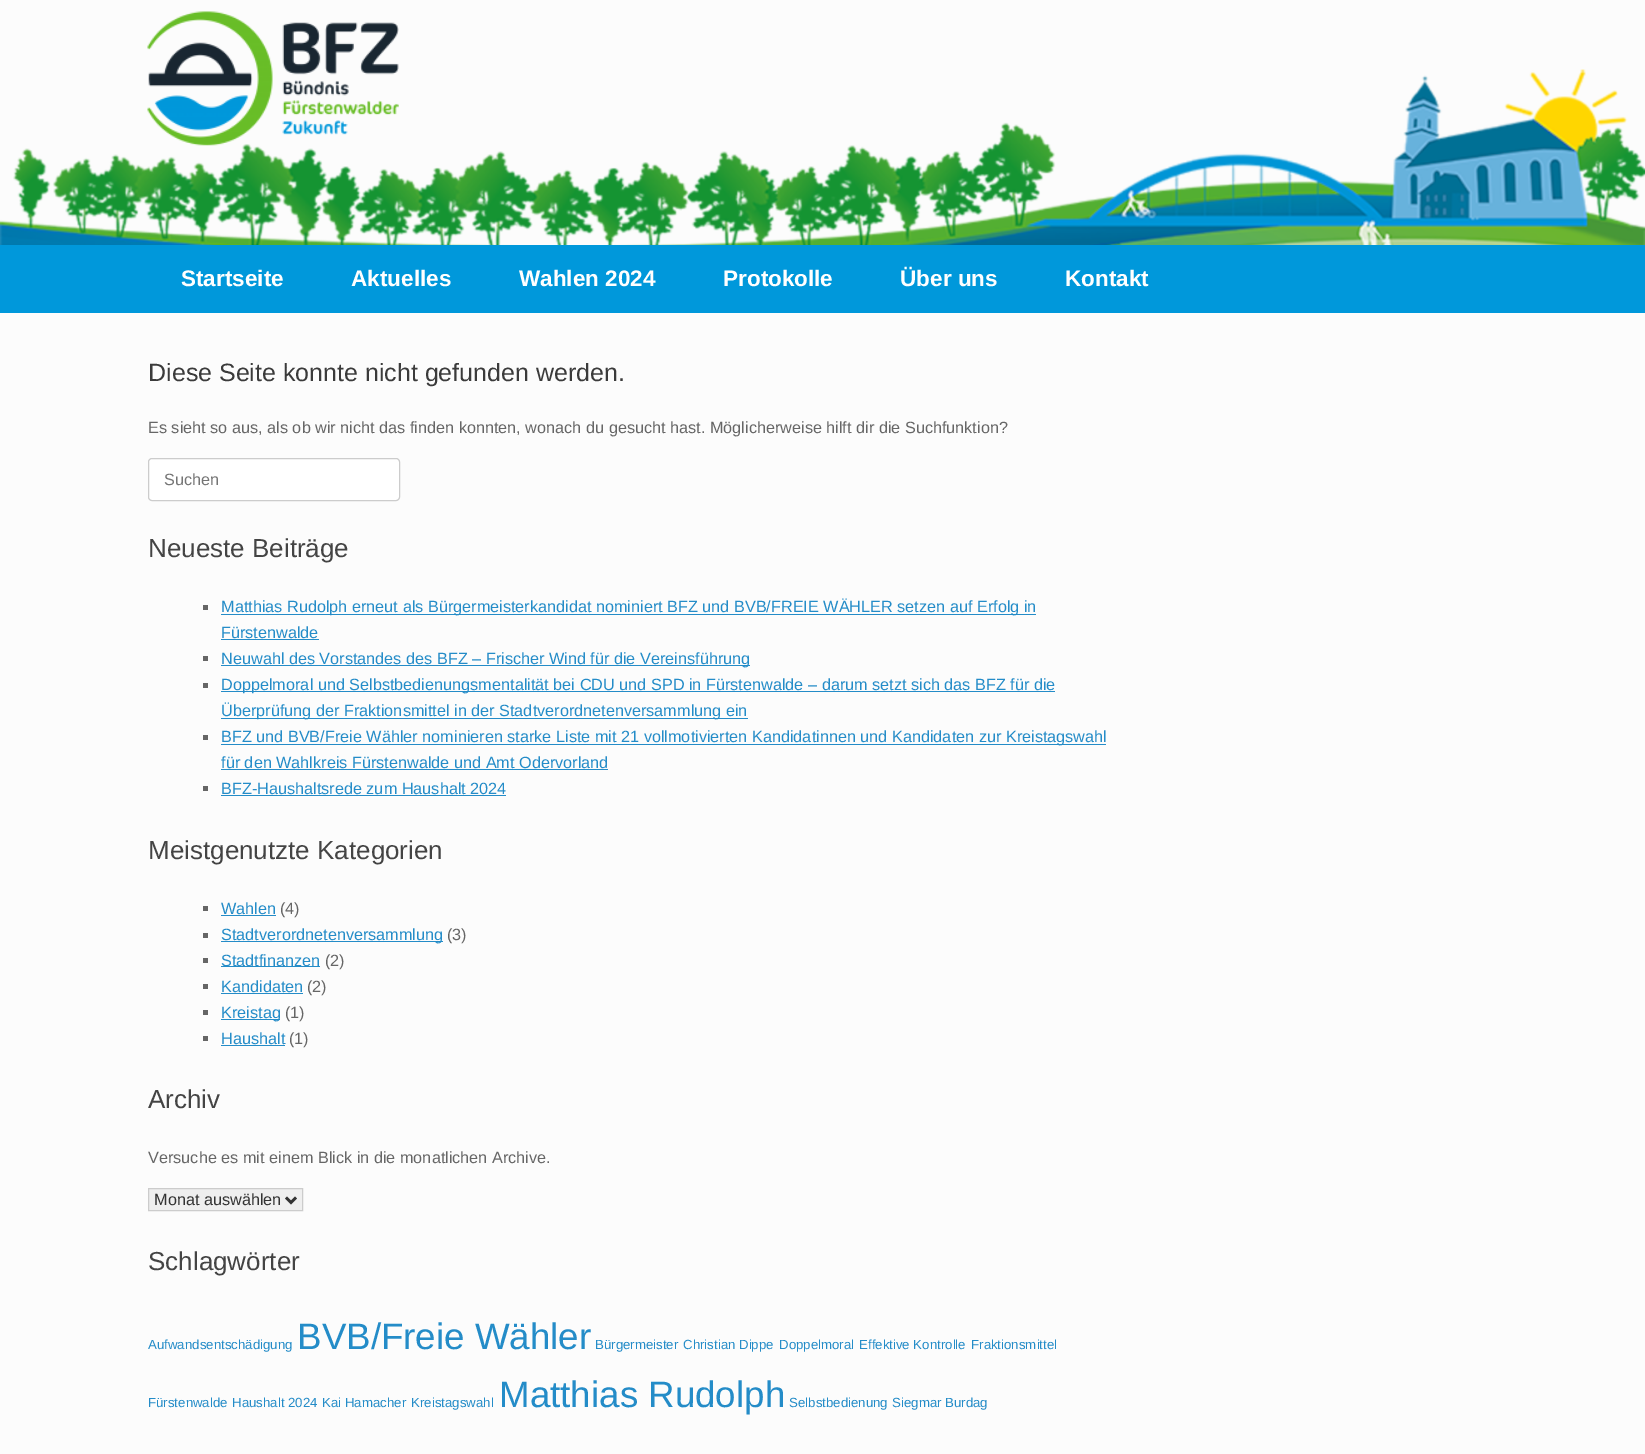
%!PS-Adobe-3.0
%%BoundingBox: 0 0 1645 1454
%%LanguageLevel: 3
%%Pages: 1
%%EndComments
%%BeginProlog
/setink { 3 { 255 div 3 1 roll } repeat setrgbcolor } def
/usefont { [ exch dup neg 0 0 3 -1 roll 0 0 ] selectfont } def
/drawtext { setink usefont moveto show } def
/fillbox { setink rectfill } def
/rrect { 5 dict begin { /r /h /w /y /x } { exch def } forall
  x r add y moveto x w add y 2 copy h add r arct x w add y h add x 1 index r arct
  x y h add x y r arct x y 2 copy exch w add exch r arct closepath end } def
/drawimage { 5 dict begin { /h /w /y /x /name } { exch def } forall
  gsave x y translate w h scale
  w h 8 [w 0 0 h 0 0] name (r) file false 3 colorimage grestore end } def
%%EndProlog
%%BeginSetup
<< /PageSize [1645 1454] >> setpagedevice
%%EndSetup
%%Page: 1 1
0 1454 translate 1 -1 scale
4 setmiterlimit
0 0 1645 1454 252 252 252 fillbox
(assets/img1.rgb) 0 69 1645 176 drawimage
(assets/img2.rgb) 147 11 252 135 drawimage
0 245 1645 68 0 152 219 fillbox
(Startseite) 181 286 /LiberationSans-Bold 22.5 255 255 255 drawtext
(Aktuelles) 351 286 /LiberationSans-Bold 22.5 255 255 255 drawtext
(Wahlen 2024) 519 286 /LiberationSans-Bold 22.5 255 255 255 drawtext
(Protokolle) 723 286 /LiberationSans-Bold 22.5 255 255 255 drawtext
(Über uns) 900 286 /LiberationSans-Bold 22.5 255 255 255 drawtext
(Kontakt) 1065 286 /LiberationSans-Bold 22.5 255 255 255 drawtext
(Diese Seite konnte nicht gefunden werden.) 148 381 /LiberationSans-Regular 25 59 59 59 drawtext
(Es sieht so aus, als ob wir nicht das finden konnten, wonach du gesucht hast. Möglicherweise hilft dir die Suchfunktion?) 148 433 /LiberationSans-Regular 16.25 102 102 102 drawtext
255 255 255 setink
148.5 458.5 251 42 3.5 rrect gsave fill grestore
204 204 204 setink
stroke
(Suchen) 164 485 /LiberationSans-Regular 16.25 117 117 117 drawtext
(Neueste Beiträge) 148 557 /LiberationSans-Regular 26 68 68 68 drawtext
203 605 5 5 102 102 102 fillbox
221 614 815 1 36 140 200 fillbox
(Matthias Rudolph erneut als Bürgermeisterkandidat nominiert BFZ und BVB/FREIE WÄHLER setzen auf Erfolg in) 221 612 /LiberationSans-Regular 16.25 36 140 200 drawtext
(Fürstenwalde) 221 638 /LiberationSans-Regular 16.25 36 140 200 drawtext
221 639 98 1 36 140 200 fillbox
203 656 5 5 102 102 102 fillbox
221 665 529 1 36 140 200 fillbox
(Neuwahl des Vorstandes des BFZ – Frischer Wind für die Vereinsführung) 221 664 /LiberationSans-Regular 16.25 36 140 200 drawtext
203 683 5 5 102 102 102 fillbox
221 691 834 1 36 140 200 fillbox
(Doppelmoral und Selbstbedienungsmentalität bei CDU und SPD in Fürstenwalde – darum setzt sich das BFZ für die) 221 690 /LiberationSans-Regular 16.25 36 140 200 drawtext
221 718 527 1 36 140 200 fillbox
(Überprüfung der Fraktionsmittel in der Stadtverordnetenversammlung ein) 221 716 /LiberationSans-Regular 16.25 36 140 200 drawtext
203 735 5 5 102 102 102 fillbox
221 744 885 1 36 140 200 fillbox
(BFZ und BVB/Freie Wähler nominieren starke Liste mit 21 vollmotivierten Kandidatinnen und Kandidaten zur Kreistagswahl) 221 742 /LiberationSans-Regular 16.25 36 140 200 drawtext
(für den Wahlkreis Fürstenwalde und Amt Odervorland) 221 768 /LiberationSans-Regular 16.25 36 140 200 drawtext
221 769 387 1 36 140 200 fillbox
203 786 5 5 102 102 102 fillbox
(BFZ-Haushaltsrede zum Haushalt 2024) 221 794 /LiberationSans-Regular 16.25 36 140 200 drawtext
221 795 285 1 36 140 200 fillbox
(Meistgenutzte Kategorien) 148 859 /LiberationSans-Regular 26 68 68 68 drawtext
203 906 5 5 102 102 102 fillbox
(Wahlen) 221 914 /LiberationSans-Regular 16.25 36 140 200 drawtext
221 915 55 1 36 140 200 fillbox
(\(4\)) 280 914 /LiberationSans-Regular 16.25 102 102 102 drawtext
203 933 5 5 102 102 102 fillbox
221 941 222 1 36 140 200 fillbox
(Stadtverordnetenversammlung) 221 940 /LiberationSans-Regular 16.25 36 140 200 drawtext
(\(3\)) 447 940 /LiberationSans-Regular 16.25 102 102 102 drawtext
203 958 5 5 102 102 102 fillbox
221 966 99 1 36 140 200 fillbox
(Stadtfinanzen) 221 966 /LiberationSans-Regular 16.25 36 140 200 drawtext
(\(2\)) 325 966 /LiberationSans-Regular 16.25 102 102 102 drawtext
203 984 5 5 102 102 102 fillbox
(Kandidaten) 221 992 /LiberationSans-Regular 16.25 36 140 200 drawtext
221 993 82 1 36 140 200 fillbox
(\(2\)) 307 992 /LiberationSans-Regular 16.25 102 102 102 drawtext
203 1010 5 5 102 102 102 fillbox
221 1019 59 1 36 140 200 fillbox
(Kreistag) 221 1018 /LiberationSans-Regular 16.25 36 140 200 drawtext
(\(1\)) 285 1018 /LiberationSans-Regular 16.25 102 102 102 drawtext
203 1036 5 5 102 102 102 fillbox
(Haushalt) 221 1044 /LiberationSans-Regular 16.25 36 140 200 drawtext
221 1045 64 1 36 140 200 fillbox
(\(1\)) 289 1044 /LiberationSans-Regular 16.25 102 102 102 drawtext
(Archiv) 148 1108 /LiberationSans-Regular 26 68 68 68 drawtext
(Versuche es mit einem Blick in die monatlichen Archive.) 148 1163 /LiberationSans-Regular 16.25 102 102 102 drawtext
239 239 239 setink
148.5 1188.5 moveto 302.5 1188.5 lineto 302.5 1210.5 lineto 148.5 1210.5 lineto closepath gsave fill grestore
204 204 204 setink
stroke
51 51 51 setink
2.5 setlinewidth
286 1197.5 moveto 291 1202.5 lineto 296 1197.5 lineto stroke
(Monat auswählen) 154 1205 /LiberationSans-Regular 16.25 51 51 51 drawtext
(Schlagwörter) 148 1270 /LiberationSans-Regular 26 68 68 68 drawtext
(Aufwandsentschädigung) 148 1349 /LiberationSans-Regular 13.25 36 140 200 drawtext
(BVB/Freie Wähler) 297 1349 /LiberationSans-Regular 36.75 36 140 200 drawtext
(Bürgermeister) 595 1349 /LiberationSans-Regular 13.25 36 140 200 drawtext
(Christian Dippe) 683 1349 /LiberationSans-Regular 13.25 36 140 200 drawtext
(Doppelmoral) 779 1349 /LiberationSans-Regular 13.25 36 140 200 drawtext
(Effektive Kontrolle) 859 1349 /LiberationSans-Regular 13.25 36 140 200 drawtext
(Fraktionsmittel) 971 1349 /LiberationSans-Regular 13.25 36 140 200 drawtext
(Fürstenwalde) 148 1407 /LiberationSans-Regular 13.25 36 140 200 drawtext
(Haushalt 2024) 232 1407 /LiberationSans-Regular 13.25 36 140 200 drawtext
(Kai Hamacher) 322 1407 /LiberationSans-Regular 13.25 36 140 200 drawtext
(Kreistagswahl) 411 1407 /LiberationSans-Regular 13.25 36 140 200 drawtext
(Matthias Rudolph) 499 1407 /LiberationSans-Regular 36.75 36 140 200 drawtext
(Selbstbedienung) 789 1407 /LiberationSans-Regular 13.25 36 140 200 drawtext
(Siegmar Burdag) 892 1407 /LiberationSans-Regular 13.25 36 140 200 drawtext
showpage
%%EOF
